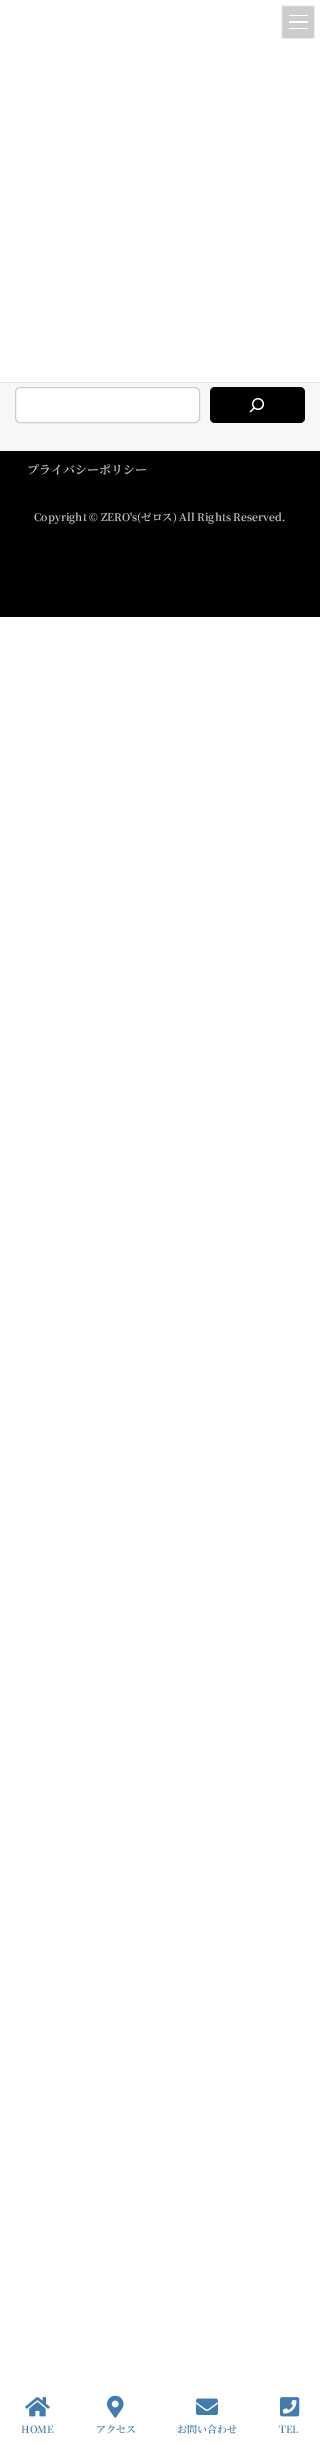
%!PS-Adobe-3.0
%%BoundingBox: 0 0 320 2445
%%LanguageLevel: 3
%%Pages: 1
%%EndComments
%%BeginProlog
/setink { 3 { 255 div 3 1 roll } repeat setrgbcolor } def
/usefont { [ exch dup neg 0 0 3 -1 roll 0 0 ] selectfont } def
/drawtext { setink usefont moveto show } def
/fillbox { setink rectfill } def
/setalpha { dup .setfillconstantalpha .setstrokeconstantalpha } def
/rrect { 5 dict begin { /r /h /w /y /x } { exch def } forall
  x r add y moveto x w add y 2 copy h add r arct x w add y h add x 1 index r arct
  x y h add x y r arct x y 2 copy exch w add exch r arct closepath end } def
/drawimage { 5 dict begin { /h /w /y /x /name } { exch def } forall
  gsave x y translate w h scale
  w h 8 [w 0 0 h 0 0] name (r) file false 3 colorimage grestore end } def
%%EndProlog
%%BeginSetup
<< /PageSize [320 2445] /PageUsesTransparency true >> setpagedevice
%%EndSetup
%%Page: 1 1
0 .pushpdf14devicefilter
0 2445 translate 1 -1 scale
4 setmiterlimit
0 0 320 2445 255 255 255 fillbox
0 383 320 68 247 247 247 fillbox
204 204 204 setink
281 5 34 34 2 rrect fill
289 15 19 1 255 255 255 fillbox
289 21 19 2 255 255 255 fillbox
289 28 19 1 255 255 255 fillbox
0.7 setalpha
281.5 5.5 33 33 1.5 rrect stroke
1 setalpha
0 382 320 1 229 229 229 fillbox
255 255 255 setink
15.5 387.5 184 35 4.5 rrect gsave fill grestore
204 204 204 setink
stroke
0 0 0 setink
210 387 95 36 5 rrect fill
(assets/img1.rgb) 249 398 16 15 drawimage
0 451 320 166 0 0 0 fillbox
(プライバシーポリシー) 27 474 /NotoSerifJP-SemiBold 12 204 204 204 drawtext
(Copyright © ZERO's\(ゼロス\) All Rights Reserved.) 34 521 /NotoSerifJP-SemiBold 10.5 204 204 204 drawtext
(assets/img2.rgb) 25 2397 25 20 drawimage
(HOME) 21 2433 /NotoSerifJP-SemiBold 10 67 124 173 drawtext
(assets/img3.rgb) 107 2395 17 23 drawimage
(アクセス) 96 2433 /NotoSerifJP-SemiBold 10 67 124 173 drawtext
(assets/img4.rgb) 196 2398 22 17 drawimage
(お問い合わせ) 177 2433 /NotoSerifJP-SemiBold 10 67 124 173 drawtext
(assets/img5.rgb) 280 2397 20 20 drawimage
(TEL) 279 2433 /NotoSerifJP-SemiBold 10 67 124 173 drawtext
.poppdf14devicefilter showpage
%%EOF
